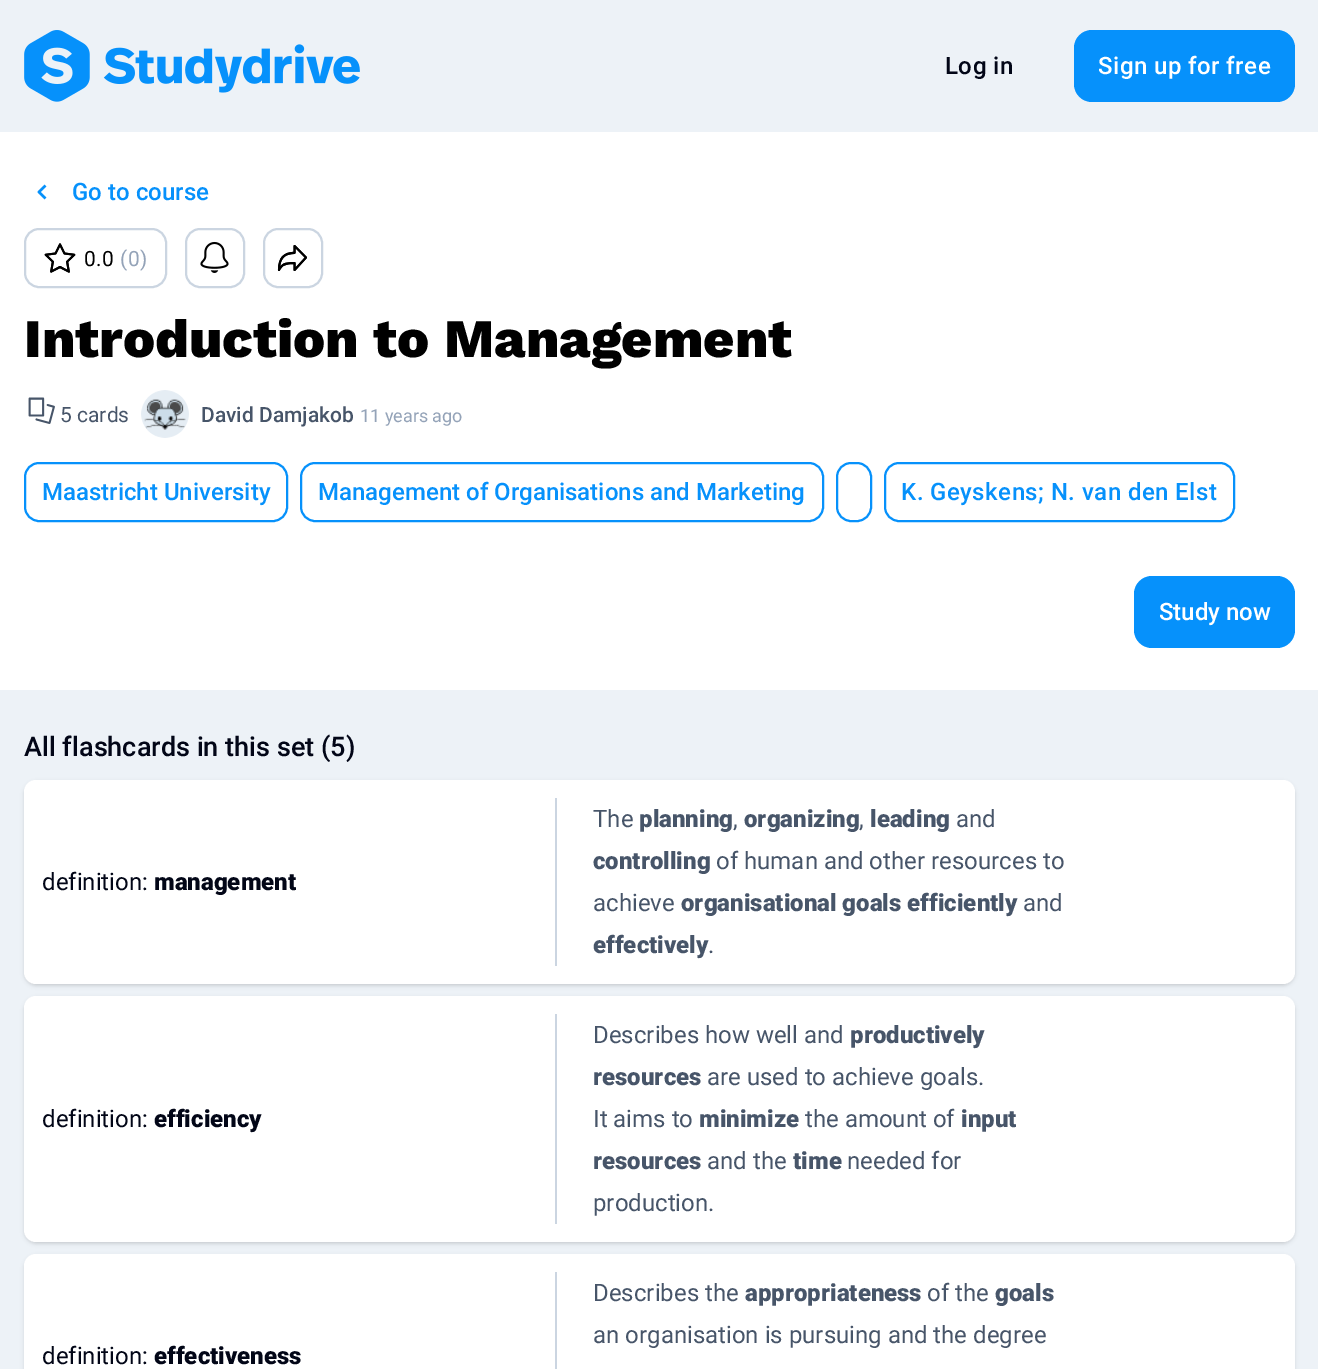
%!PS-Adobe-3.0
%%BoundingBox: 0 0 1318 1369
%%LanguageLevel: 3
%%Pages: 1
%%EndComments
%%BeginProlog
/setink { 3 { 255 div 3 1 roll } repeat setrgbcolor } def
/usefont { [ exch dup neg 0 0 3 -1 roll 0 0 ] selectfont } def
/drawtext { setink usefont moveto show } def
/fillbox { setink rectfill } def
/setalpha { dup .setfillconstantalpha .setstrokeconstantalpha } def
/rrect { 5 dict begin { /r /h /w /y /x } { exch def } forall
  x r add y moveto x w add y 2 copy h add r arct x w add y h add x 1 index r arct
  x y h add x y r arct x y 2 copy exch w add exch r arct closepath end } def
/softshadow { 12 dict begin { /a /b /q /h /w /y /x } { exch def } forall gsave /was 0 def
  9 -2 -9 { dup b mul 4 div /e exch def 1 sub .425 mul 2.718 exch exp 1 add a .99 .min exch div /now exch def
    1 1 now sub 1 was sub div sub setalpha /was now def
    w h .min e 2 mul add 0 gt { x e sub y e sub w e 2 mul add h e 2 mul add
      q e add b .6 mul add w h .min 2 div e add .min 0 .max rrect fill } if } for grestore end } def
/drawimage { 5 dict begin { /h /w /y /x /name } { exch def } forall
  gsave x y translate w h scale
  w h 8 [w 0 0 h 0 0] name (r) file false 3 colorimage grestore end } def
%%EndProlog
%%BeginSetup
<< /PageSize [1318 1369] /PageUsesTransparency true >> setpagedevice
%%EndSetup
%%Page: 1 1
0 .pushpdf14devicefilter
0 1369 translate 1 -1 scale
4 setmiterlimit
0 0 1318 1369 237 242 247 fillbox
(assets/img1.rgb) 24 30 336 72 drawimage
/Roboto-Medium 24 usefont
2 6 23 setink
945 74 moveto 0.45 0 (Log in) ashow
6 145 251 setink
1074 30 221 72 18 rrect fill
255 255 255 setink
1098 74 moveto 0.45 0 (Sign up for free) ashow
0 132 1318 558 255 255 255 fillbox
(assets/img2.rgb) 37 184 10 16 drawimage
(Go to course) 72 200 /Roboto-Medium 24 6 145 251 drawtext
203 213 225 setink
2 setlinewidth
25 229 141 58 14 rrect stroke
(assets/img3.rgb) 44 243 32 30 drawimage
/Roboto-Regular 21 usefont
0 0 0 setink
84 266 moveto 0.45 0 (0.0) ashow
148 163 184 setink
120 266 moveto 0.45 0 (\(0\)) ashow
203 213 225 setink
186 229 58 58 14 rrect stroke
(assets/img4.rgb) 200 241 29 32 drawimage
264 229 58 58 14 rrect stroke
(assets/img5.rgb) 277 245 30 26 drawimage
(Introduction to Management) 24 357 /WorkSans-ExtraBold 54 0 0 0 drawtext
(assets/img6.rgb) 28 397 27 27 drawimage
(5 cards) 60 422 /Roboto-Regular 21 71 85 105 drawtext
(assets/img7.rgb) 141 390 48 48 drawimage
(David Damjakob) 201 422 /Roboto-Medium 21 71 85 105 drawtext
(11 years ago) 360 422 /Roboto-Regular 18 148 163 184 drawtext
6 145 251 setink
25 463 262 58 14 rrect stroke
(Maastricht University) 42 500 /Roboto-Medium 24 6 145 251 drawtext
301 463 522 58 14 rrect stroke
(Management of Organisations and Marketing) 318 500 /Roboto-Medium 24 6 145 251 drawtext
837 463 34 58 14 rrect stroke
885 463 349 58 14 rrect stroke
901 500 moveto 0.45 0 (K. Geyskens; N. van den Elst) ashow
1134 576 161 72 18 rrect fill
(Study now) 1159 620 /Roboto-Medium 24 255 255 255 drawtext
(All flashcards in this set \(5\)) 24 756 /Roboto-Medium 27 2 6 23 drawtext
0 0 0 setink
26 783 1267 201 11 1.5 0.1 softshadow
24 782 1271 204 12 2 0.1 softshadow
255 255 255 setink
24 780 1271 204 12 rrect fill
(definition:) 42 890 /Roboto-Regular 24 2 6 23 drawtext
(management) 154 890 /Roboto-Black 24 2 6 23 drawtext
555 798 2 168 203 213 225 fillbox
(The) 593 827 /Roboto-Regular 24 71 85 105 drawtext
(planning) 639 827 /Roboto-Black 24 71 85 105 drawtext
(,) 733 827 /Roboto-Regular 24 71 85 105 drawtext
(organizing) 744 827 /Roboto-Black 24 71 85 105 drawtext
(,) 859 827 /Roboto-Regular 24 71 85 105 drawtext
(leading) 870 827 /Roboto-Black 24 71 85 105 drawtext
(and) 956 827 /Roboto-Regular 24 71 85 105 drawtext
(controlling) 593 869 /Roboto-Black 24 71 85 105 drawtext
(of human and other resources to) 716 869 /Roboto-Regular 24 71 85 105 drawtext
(achieve) 593 911 /Roboto-Regular 24 71 85 105 drawtext
(organisational goals efficiently) 681 911 /Roboto-Black 24 71 85 105 drawtext
(and) 1023 911 /Roboto-Regular 24 71 85 105 drawtext
(effectively) 593 953 /Roboto-Black 24 71 85 105 drawtext
(.) 708 953 /Roboto-Regular 24 71 85 105 drawtext
0 0 0 setink
26 999 1267 243 11 1.5 0.1 softshadow
24 998 1271 246 12 2 0.1 softshadow
255 255 255 setink
24 996 1271 246 12 rrect fill
(definition:) 42 1127 /Roboto-Regular 24 2 6 23 drawtext
(efficiency) 154 1127 /Roboto-Black 24 2 6 23 drawtext
555 1014 2 210 203 213 225 fillbox
(Describes how well and) 593 1043 /Roboto-Regular 24 71 85 105 drawtext
(productively) 850 1043 /Roboto-Black 24 71 85 105 drawtext
(resources) 593 1085 /Roboto-Black 24 71 85 105 drawtext
(are used to achieve goals.) 707 1085 /Roboto-Regular 24 71 85 105 drawtext
(It aims to) 593 1127 /Roboto-Regular 24 71 85 105 drawtext
(minimize) 699 1127 /Roboto-Black 24 71 85 105 drawtext
(the amount of) 805 1127 /Roboto-Regular 24 71 85 105 drawtext
(input) 961 1127 /Roboto-Black 24 71 85 105 drawtext
(resources) 593 1169 /Roboto-Black 24 71 85 105 drawtext
(and the) 707 1169 /Roboto-Regular 24 71 85 105 drawtext
(time) 793 1169 /Roboto-Black 24 71 85 105 drawtext
(needed for) 847 1169 /Roboto-Regular 24 71 85 105 drawtext
(production.) 593 1211 /Roboto-Regular 24 71 85 105 drawtext
0 0 0 setink
24 1256 1271 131 12 2 0.1 softshadow
255 255 255 setink
24 1254 1271 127 12 rrect fill
555 1272 2 97 203 213 225 fillbox
(Describes the) 593 1301 /Roboto-Regular 24 71 85 105 drawtext
(appropriateness) 745 1301 /Roboto-Black 24 71 85 105 drawtext
(of the) 927 1301 /Roboto-Regular 24 71 85 105 drawtext
(goals) 995 1301 /Roboto-Black 24 71 85 105 drawtext
(an organisation is pursuing and the degree) 593 1343 /Roboto-Regular 24 71 85 105 drawtext
(definition:) 42 1364 /Roboto-Regular 24 2 6 23 drawtext
(effectiveness) 154 1364 /Roboto-Black 24 2 6 23 drawtext
.poppdf14devicefilter showpage
%%EOF
